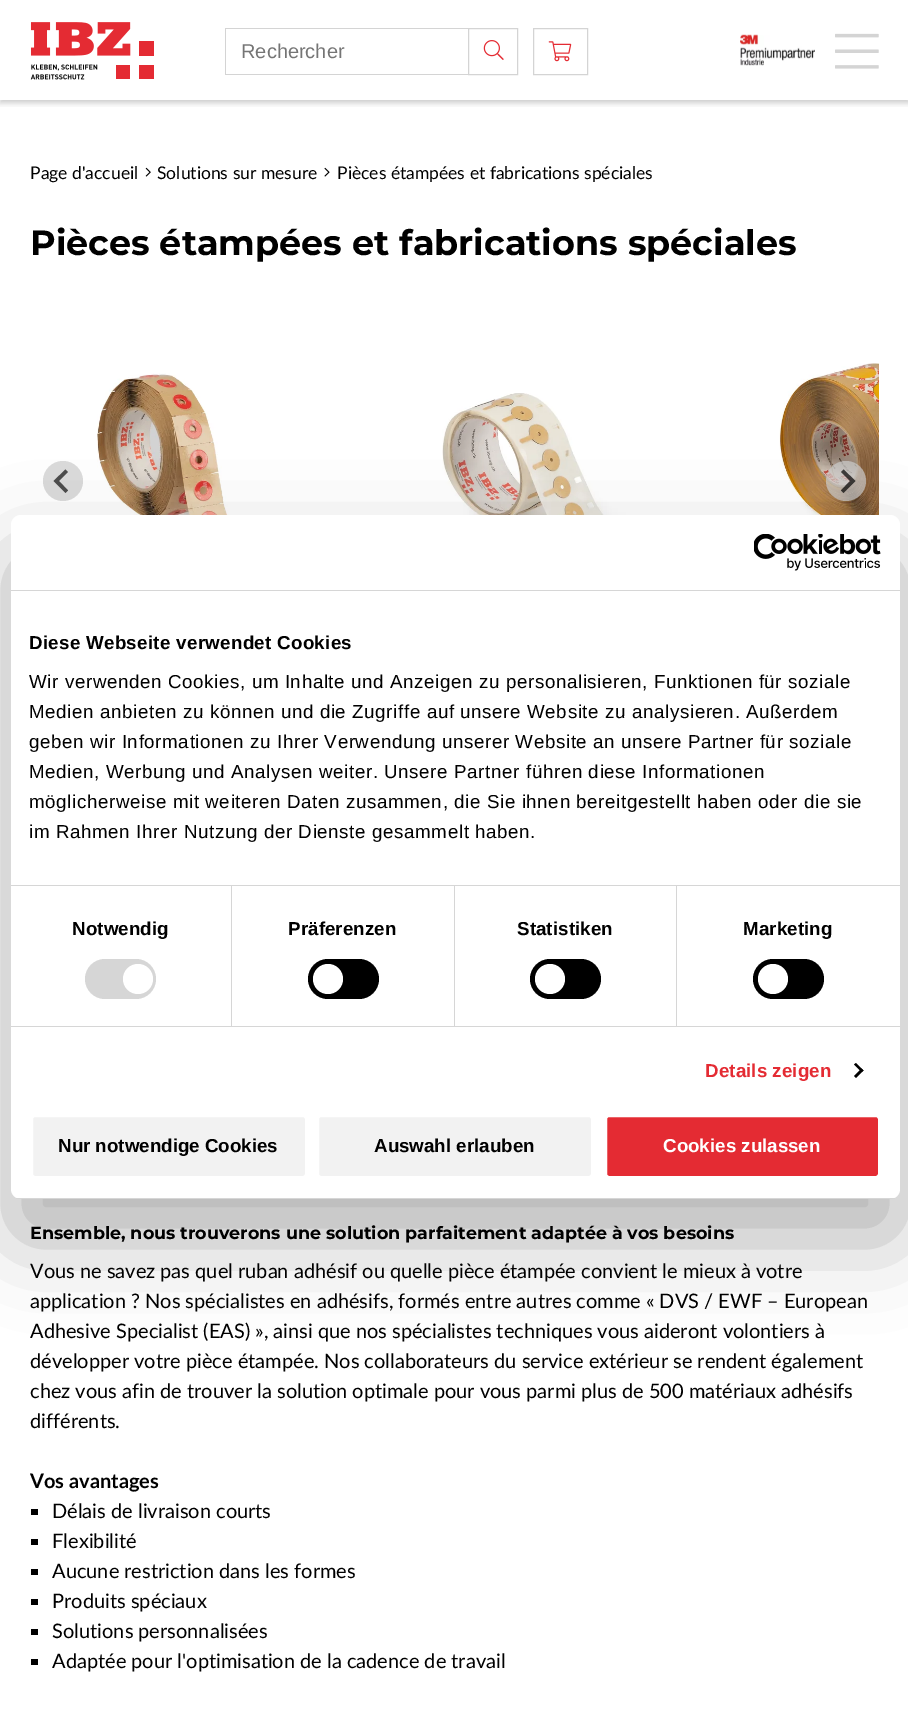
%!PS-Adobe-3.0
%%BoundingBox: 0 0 908 1711
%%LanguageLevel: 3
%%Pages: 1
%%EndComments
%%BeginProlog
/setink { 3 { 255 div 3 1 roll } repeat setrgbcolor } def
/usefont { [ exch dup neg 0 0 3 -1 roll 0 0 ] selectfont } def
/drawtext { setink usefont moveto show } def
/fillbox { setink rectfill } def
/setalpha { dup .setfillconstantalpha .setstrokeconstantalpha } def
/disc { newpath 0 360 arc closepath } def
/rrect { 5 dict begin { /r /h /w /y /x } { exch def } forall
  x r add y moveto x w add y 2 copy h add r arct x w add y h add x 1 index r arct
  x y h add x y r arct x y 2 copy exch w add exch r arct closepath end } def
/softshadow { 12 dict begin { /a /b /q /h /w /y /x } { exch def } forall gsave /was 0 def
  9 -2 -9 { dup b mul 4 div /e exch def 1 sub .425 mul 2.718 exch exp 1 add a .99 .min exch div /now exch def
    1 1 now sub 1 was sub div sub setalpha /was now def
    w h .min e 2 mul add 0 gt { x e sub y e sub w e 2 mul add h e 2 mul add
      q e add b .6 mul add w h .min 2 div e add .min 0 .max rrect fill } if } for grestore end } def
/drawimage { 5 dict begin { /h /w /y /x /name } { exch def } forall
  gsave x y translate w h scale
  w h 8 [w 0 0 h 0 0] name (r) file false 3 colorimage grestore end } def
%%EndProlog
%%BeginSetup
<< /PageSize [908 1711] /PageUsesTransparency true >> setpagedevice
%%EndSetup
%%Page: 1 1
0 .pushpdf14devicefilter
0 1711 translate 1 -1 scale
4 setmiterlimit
0 0 908 1711 255 255 255 fillbox
gsave
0 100 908 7 rectclip
0 0 0 setink
0 3 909 100 0 3 0.2 softshadow
grestore
(assets/img1.rgb) 30 22 124 58 drawimage
225 28 243 1 212 212 212 fillbox
225 74 243 1 212 212 212 fillbox
225 28 1 47 212 212 212 fillbox
(Rechercher) 241 58 /LiberationSans-Regular 20 117 117 117 drawtext
212 212 212 setink
468.5 28.5 49 46 rectstroke
(assets/img2.rgb) 483 40 21 20 drawimage
533.5 28.5 54 46 rectstroke
(assets/img3.rgb) 548 41 24 21 drawimage
(assets/img4.rgb) 740 34 75 32 drawimage
(assets/img5.rgb) 835 33 44 36 drawimage
(Page d'accueil) 30 179 /Lato-Regular 17.5 0 0 0 drawtext
(assets/img6.rgb) 145 167 6 10 drawimage
(Solutions sur mesure) 157 179 /Lato-Regular 17.5 0 0 0 drawtext
(assets/img7.rgb) 324 167 6 10 drawimage
(Pièces étampées et fabrications spéciales) 337 179 /Lato-Regular 17.5 0 0 0 drawtext
(Pièces étampées et fabrications spéciales) 30 255 /Montserrat-Bold 35 0 0 0 drawtext
(assets/img8.rgb) 97 373 200 142 drawimage
(assets/img9.rgb) 442 393 228 122 drawimage
(assets/img10.rgb) 779 363 100 152 drawimage
219 219 219 setink
63 481 20 disc fill
77 77 77 setink
65.5 469.5 moveto 68 472 lineto 59 481 lineto 68 490.5 lineto 65.5 493 lineto 53.5 481 lineto closepath fill
0.7 setalpha
204 204 204 setink
846 481 20 disc fill
0 0 0 setink
843.5 469.5 moveto 841 472 lineto 850 481 lineto 841 490.5 lineto 843.5 493 lineto 855.5 481 lineto closepath fill
1 setalpha
(Ensemble, nous trouverons une solution parfaitement adaptée à vos besoins) 30 1239 /Montserrat-Bold 17.5 0 0 0 drawtext
(Vous ne savez pas quel ruban adhésif ou quelle pièce étampée convient le mieux à votre) 30 1278 /Lato-Regular 20 0 0 0 drawtext
(application ? Nos spécialistes en adhésifs, formés entre autres comme « DVS / EWF – European) 30 1308 /Lato-Regular 20 0 0 0 drawtext
(Adhesive Specialist \(EAS\) », ainsi que nos spécialistes techniques vous aideront volontiers à) 30 1338 /Lato-Regular 20 0 0 0 drawtext
(développer votre pièce étampée. Nos collaborateurs du service extérieur se rendent également) 30 1368 /Lato-Regular 20 0 0 0 drawtext
(chez vous afin de trouver la solution optimale pour vous parmi plus de 500 matériaux adhésifs) 30 1398 /Lato-Regular 20 0 0 0 drawtext
(différents.) 30 1428 /Lato-Regular 20 0 0 0 drawtext
(Vos avantages) 30 1488 /Lato-Bold 20 0 0 0 drawtext
31 1509 7 6 0 0 0 fillbox
(Délais de livraison courts) 52 1518 /Lato-Regular 20 0 0 0 drawtext
31 1539 7 6 0 0 0 fillbox
(Flexibilité) 52 1548 /Lato-Regular 20 0 0 0 drawtext
31 1569 7 6 0 0 0 fillbox
(Aucune restriction dans les formes) 52 1578 /Lato-Regular 20 0 0 0 drawtext
31 1599 7 6 0 0 0 fillbox
(Produits spéciaux) 52 1608 /Lato-Regular 20 0 0 0 drawtext
31 1629 7 6 0 0 0 fillbox
(Solutions personnalisées) 52 1638 /Lato-Regular 20 0 0 0 drawtext
31 1659 7 6 0 0 0 fillbox
(Adaptée pour l'optimisation de la cadence de travail) 52 1668 /Lato-Regular 20 0 0 0 drawtext
11 555 889 684 10 42.5 0.3 softshadow
255 255 255 setink
11 515 889 684 10 rrect fill
11 590 889 1 214 214 214 fillbox
(assets/img11.rgb) 754 534 127 37 drawimage
11 885 889 1 214 214 214 fillbox
/LiberationSans-Bold 18.75 usefont
0 0 0 setink
29 649 moveto 0.3 0 (Diese Webseite verwendet Cookies) ashow
/LiberationSans-Regular 18.75 usefont
29 688 moveto 0.62 0 (Wir verwenden Cookies, um Inhalte und Anzeigen zu personalisieren, Funktionen für soziale) ashow
29 718 moveto 0.62 0 (Medien anbieten zu können und die Zugriffe auf unsere Website zu analysieren. Außerdem) ashow
29 748 moveto 0.62 0 (geben wir Informationen zu Ihrer Verwendung unserer Website an unsere Partner für soziale) ashow
29 778 moveto 0.62 0 (Medien, Werbung und Analysen weiter. Unsere Partner führen diese Informationen) ashow
29 808 moveto 0.62 0 (möglicherweise mit weiteren Daten zusammen, die Sie ihnen bereitgestellt haben oder die sie) ashow
29 838 moveto 0.62 0 (im Rahmen Ihrer Nutzung der Dienste gesammelt haben.) ashow
11 1026 889 1 214 214 214 fillbox
231 886 1 140 214 214 214 fillbox
/LiberationSans-Bold 18.75 usefont
0 0 0 setink
72 935 moveto 0.1 0 (Notwendig) ashow
214 214 214 setink
85 959 71 40 20 rrect fill
255 255 255 setink
138 979 15 disc fill
454 886 1 140 214 214 214 fillbox
0 0 0 setink
288 935 moveto 0.1 0 (Präferenzen) ashow
308 959 71 40 20 rrect fill
255 255 255 setink
328 979 15 disc fill
676 886 1 140 214 214 214 fillbox
0 0 0 setink
517 935 moveto 0.1 0 (Statistiken) ashow
530 959 71 40 20 rrect fill
255 255 255 setink
550 979 15 disc fill
0 0 0 setink
743 935 moveto 0.1 0 (Marketing) ashow
753 959 71 40 20 rrect fill
255 255 255 setink
773 979 15 disc fill
228 43 51 setink
705 1077 moveto 0.1 0 (Details zeigen) ashow
0 0 0 setink
856 1063 moveto 863.5 1070.5 lineto 861.5 1072 lineto 854 1064.5 lineto closepath fill
861.5 1068.5 moveto 863.5 1070.5 lineto 856 1078 lineto 854 1076 lineto closepath fill
gsave
11 515 889 684 10 rrect clip newpath
11 1198 889 1 214 214 214 fillbox
grestore
242 242 242 setink
31.5 1115.5 275 62 3.5 rrect gsave fill grestore
255 255 255 setink
3 setlinewidth
stroke
(Nur notwendige Cookies) 58 1152 /LiberationSans-Bold 18.75 0 0 0 drawtext
242 242 242 setink
317.5 1115.5 275 62 3.5 rrect gsave fill grestore
255 255 255 setink
stroke
(Auswahl erlauben) 374 1152 /LiberationSans-Bold 18.75 0 0 0 drawtext
228 43 51 setink
605.5 1115.5 274 62 3.5 rrect gsave fill grestore
255 255 255 setink
stroke
(Cookies zulassen) 663 1152 /LiberationSans-Bold 18.75 255 255 255 drawtext
.poppdf14devicefilter showpage
%%EOF
